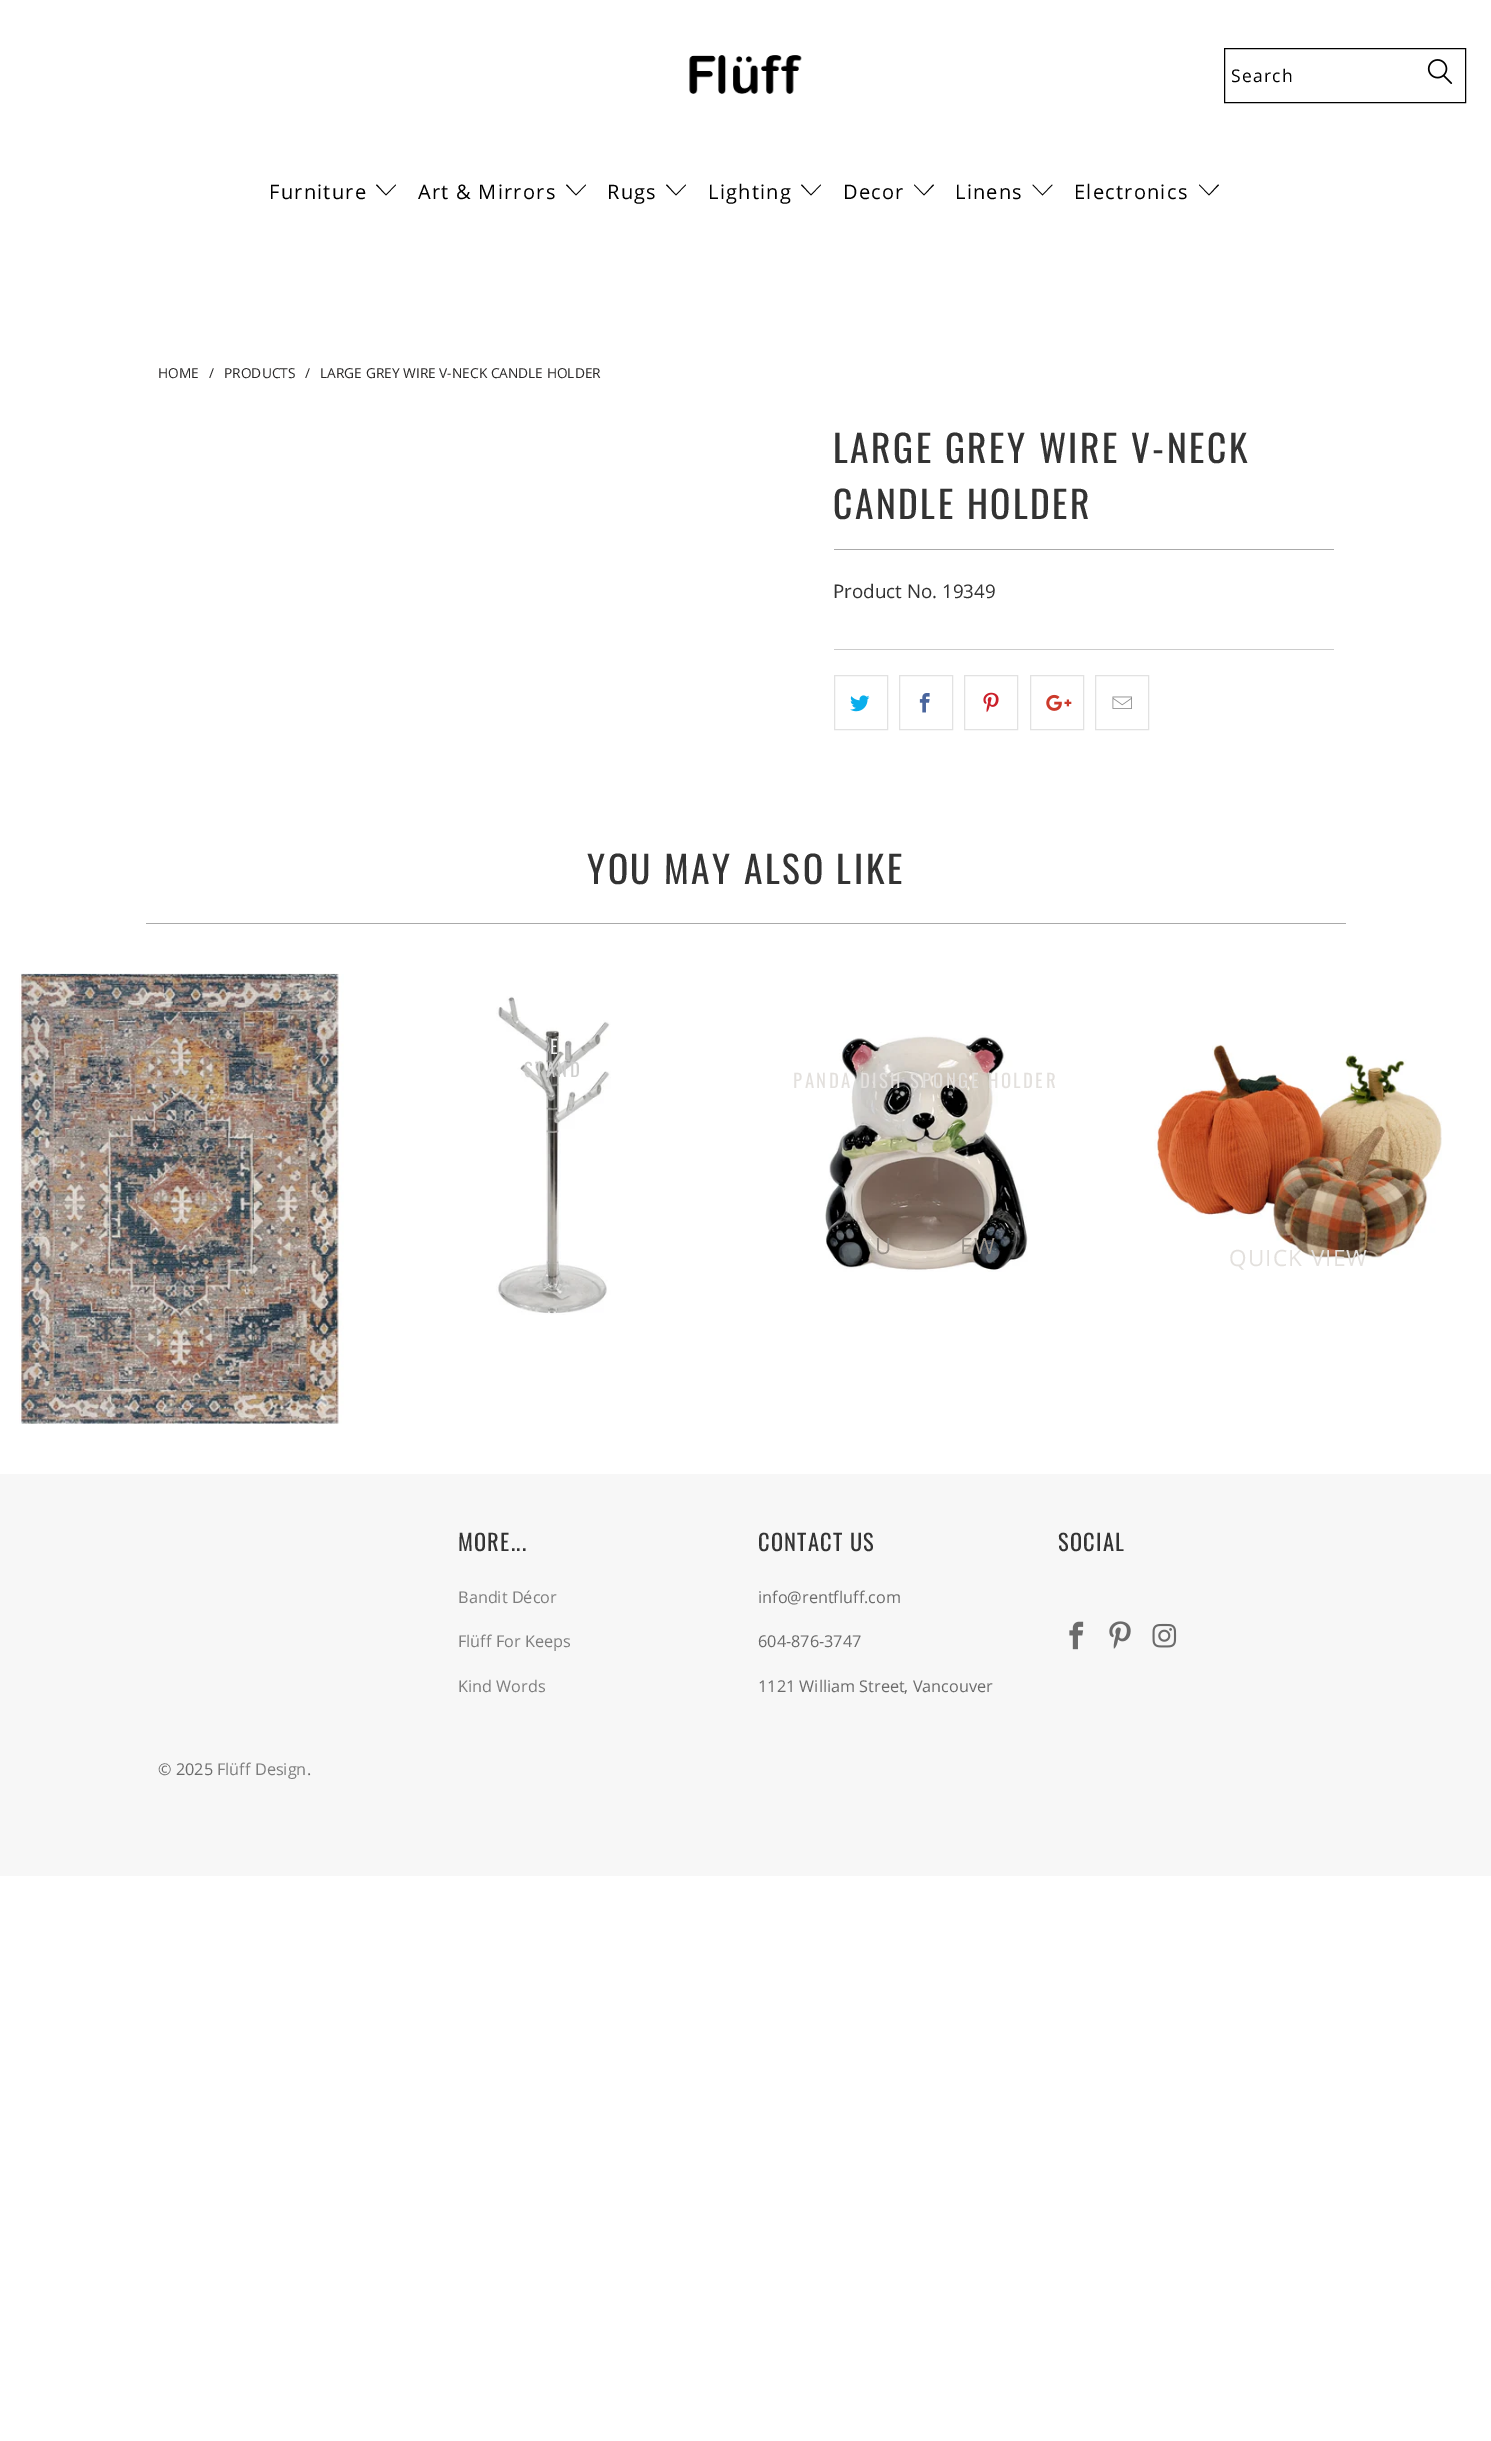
%!PS-Adobe-3.0
%%BoundingBox: 0 0 1491 2441
%%LanguageLevel: 3
%%Pages: 1
%%EndComments
%%BeginProlog
/setink { 3 { 255 div 3 1 roll } repeat setrgbcolor } def
/usefont { [ exch dup neg 0 0 3 -1 roll 0 0 ] selectfont } def
/drawtext { setink usefont moveto show } def
/fillbox { setink rectfill } def
/drawimage { 5 dict begin { /h /w /y /x /name } { exch def } forall
  gsave x y translate w h scale
  w h 8 [w 0 0 h 0 0] name (r) file false 3 colorimage grestore end } def
%%EndProlog
%%BeginSetup
<< /PageSize [1491 2441] >> setpagedevice
%%EndSetup
%%Page: 1 1
0 2441 translate 1 -1 scale
4 setmiterlimit
0 0 1491 2441 255 255 255 fillbox
(assets/img1.rgb) 689 55 113 39 drawimage
0 0 0 setink
1224.5 48.5 241 54 rectstroke
/OpenSans-Regular 17.5 usefont
1231 82 moveto 1.25 0 (Search) ashow
(assets/img2.rgb) 1427 59 26 25 drawimage
/OpenSans-Regular 20 usefont
269 199 moveto 1.25 0 (Furniture) ashow
386 195.5 moveto 376 185 lineto 377 184.5 lineto 386 194.5 lineto 395.5 184.5 lineto 396 185 lineto closepath fill
418 199 moveto 1.25 0 (Art & Mirrors) ashow
576 195.5 moveto 566 185 lineto 567 184.5 lineto 576 194.5 lineto 585.5 184.5 lineto 586 185 lineto closepath fill
607 199 moveto 1.25 0 (Rugs) ashow
676 195.5 moveto 666 185 lineto 667 184.5 lineto 676 194.5 lineto 685.5 184.5 lineto 686 185 lineto closepath fill
708 199 moveto 1.25 0 (Lighting) ashow
811 195.5 moveto 801 185 lineto 802 184.5 lineto 811 194.5 lineto 820.5 184.5 lineto 821 185 lineto closepath fill
843 199 moveto 1.25 0 (Decor) ashow
924 195.5 moveto 914 185 lineto 914.5 184.5 lineto 924 194.5 lineto 933 184.5 lineto 934 185 lineto closepath fill
955 199 moveto 1.25 0 (Linens) ashow
1042.5 195.5 moveto 1032.5 185 lineto 1033 184.5 lineto 1042.5 194.5 lineto 1052 184.5 lineto 1052.5 185 lineto closepath fill
1074 199 moveto 1.25 0 (Electronics) ashow
1209 195.5 moveto 1199 185 lineto 1199.5 184.5 lineto 1209 194.5 lineto 1218 184.5 lineto 1219 185 lineto closepath fill
(HOME) 158 378 /OpenSans-Regular 13.75 42 41 41 drawtext
(/) 209 378 /OpenSans-Regular 13.75 42 41 41 drawtext
(PRODUCTS) 224 378 /OpenSans-Regular 13.75 42 41 41 drawtext
(/) 305 378 /OpenSans-Regular 13.75 42 41 41 drawtext
(LARGE GREY WIRE V-NECK CANDLE HOLDER) 320 378 /OpenSans-Regular 13.75 42 41 41 drawtext
/Oswald-Regular 37.5 usefont
51 51 51 setink
833 463 moveto 2.5 0 (LARGE GREY WIRE V-NECK) ashow
833 519 moveto 2.5 0 (CANDLE HOLDER) ashow
834 549 500 1 170 170 170 fillbox
(Product No. 19349) 833 598 /OpenSans-Regular 18.75 51 51 51 drawtext
834 649 500 1 204 204 204 fillbox
226 226 226 setink
834.5 675.5 53 54 rectstroke
(assets/img3.rgb) 850 695 20 17 drawimage
899.5 675.5 53 54 rectstroke
(assets/img4.rgb) 919 693 11 20 drawimage
964.5 675.5 53 54 rectstroke
(assets/img5.rgb) 983 692 16 21 drawimage
1030.5 675.5 53 54 rectstroke
(assets/img6.rgb) 1046 694 26 17 drawimage
1095.5 675.5 53 54 rectstroke
(assets/img7.rgb) 1112 696 20 13 drawimage
/Oswald-Regular 37.5 usefont
51 51 51 setink
587 884 moveto 2.5 0 (YOU MAY ALSO LIKE) ashow
146 923 1200 1 170 170 170 fillbox
(assets/img8.rgb) 19 973 325 451 drawimage
(assets/img9.rgb) 496 996 115 319 drawimage
/Oswald-Regular 18.75 usefont
241 241 241 setink
550 1054 moveto 2.5 0 (E) ashow
207 207 206 setink
524 1077 moveto 2.5 0 (STAND) ashow
(assets/img10.rgb) 825 1035 203 237 drawimage
227 224 221 setink
793 1088 moveto 2.5 0 (PANDA DISH SPONGE HOLDER) ashow
/OpenSans-Regular 22.5 usefont
151 144 136 setink
875 1254 moveto 1.25 0 (U) ashow
960 1254 moveto 1.25 0 (EW) ashow
(assets/img11.rgb) 1154 1044 288 216 drawimage
227 224 221 setink
1229 1266 moveto 1.25 0 (QUICK VIEW) ashow
0 1474 1491 402 247 247 247 fillbox
/Oswald-Regular 22.5 usefont
51 51 51 setink
458 1551 moveto 1.25 0 (MORE...) ashow
(Bandit Décor) 458 1603 /OpenSans-Regular 16.25 126 126 126 drawtext
(Flüff For Keeps) 458 1647 /OpenSans-Regular 16.25 126 126 126 drawtext
(Kind Words) 458 1692 /OpenSans-Regular 16.25 126 126 126 drawtext
/Oswald-Regular 22.5 usefont
51 51 51 setink
758 1551 moveto 1.25 0 (CONTACT US) ashow
(info@rentfluff.com) 758 1603 /OpenSans-Regular 16.25 107 107 107 drawtext
(604-876-3747) 758 1647 /OpenSans-Regular 16.25 107 107 107 drawtext
(1121 William Street, Vancouver) 758 1692 /OpenSans-Regular 16.25 107 107 107 drawtext
/Oswald-Regular 22.5 usefont
51 51 51 setink
1058 1551 moveto 1.25 0 (SOCIAL) ashow
(assets/img12.rgb) 1069 1621 15 29 drawimage
(assets/img13.rgb) 1109 1621 22 28 drawimage
(assets/img14.rgb) 1152 1623 25 25 drawimage
(© 2025) 158 1775 /OpenSans-Regular 16.25 107 107 107 drawtext
(Flüff Design) 217 1775 /OpenSans-Regular 16.25 126 126 126 drawtext
(.) 307 1775 /OpenSans-Regular 16.25 107 107 107 drawtext
showpage
%%EOF
